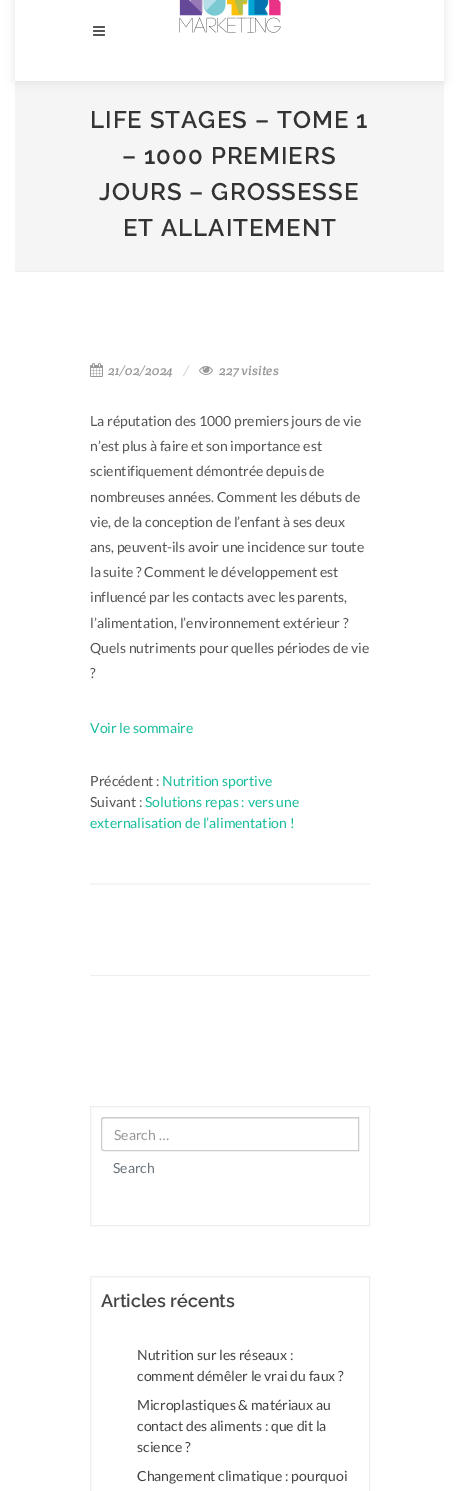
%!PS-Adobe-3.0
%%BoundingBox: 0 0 459 1491
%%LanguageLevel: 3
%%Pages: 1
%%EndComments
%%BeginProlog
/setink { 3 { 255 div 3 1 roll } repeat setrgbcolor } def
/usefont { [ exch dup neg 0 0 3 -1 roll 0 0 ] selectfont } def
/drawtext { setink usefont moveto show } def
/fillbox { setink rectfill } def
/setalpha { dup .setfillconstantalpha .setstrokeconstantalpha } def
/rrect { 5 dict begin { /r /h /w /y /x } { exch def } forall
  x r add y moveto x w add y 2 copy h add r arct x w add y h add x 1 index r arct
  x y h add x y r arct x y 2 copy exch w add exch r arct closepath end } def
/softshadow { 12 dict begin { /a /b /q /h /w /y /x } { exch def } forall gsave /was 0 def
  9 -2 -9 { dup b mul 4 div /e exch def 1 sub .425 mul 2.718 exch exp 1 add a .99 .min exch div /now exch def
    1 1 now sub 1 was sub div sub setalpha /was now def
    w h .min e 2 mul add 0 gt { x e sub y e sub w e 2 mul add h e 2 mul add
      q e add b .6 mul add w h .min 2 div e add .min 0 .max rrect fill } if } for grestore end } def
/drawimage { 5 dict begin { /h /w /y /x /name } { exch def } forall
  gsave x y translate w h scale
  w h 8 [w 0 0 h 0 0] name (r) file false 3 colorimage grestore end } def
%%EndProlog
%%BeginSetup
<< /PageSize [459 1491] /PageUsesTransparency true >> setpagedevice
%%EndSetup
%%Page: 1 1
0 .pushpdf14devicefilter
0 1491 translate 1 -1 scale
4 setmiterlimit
0 0 459 1491 255 255 255 fillbox
15 81 429 190 245 245 245 fillbox
gsave
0 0 moveto 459 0 lineto 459 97 lineto 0 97 lineto closepath 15 -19 moveto 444 -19 lineto 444 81 lineto 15 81 lineto closepath eoclip newpath
0 0 0 setink
15 -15 429 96 0 5 0.1 softshadow
grestore
(assets/img1.rgb) 93 26 12 10 drawimage
(assets/img2.rgb) 179 0 102 33 drawimage
15 271 429 1 238 238 238 fillbox
/Raleway-SemiBold 24 usefont
51 51 51 setink
90 128 moveto 1 0 (LIFE STAGES – TOME 1) ashow
122 164 moveto 1 0 (– 1000 PREMIERS) ashow
99 200 moveto 1 0 (JOURS – GROSSESSE) ashow
123 236 moveto 1 0 (ET ALLAITEMENT) ashow
90 975 280 1 238 238 238 fillbox
90 883 280 2 245 245 245 fillbox
(assets/img3.rgb) 90 363 13 14 drawimage
(21/02/2024) 108 375 /CreteRound-Italic 13 153 153 153 drawtext
(/) 183 375 /CreteRound-Italic 13 204 204 204 drawtext
(assets/img4.rgb) 199 366 14 9 drawimage
(227 visites) 219 375 /CreteRound-Italic 13 153 153 153 drawtext
(La réputation des 1000 premiers jours de vie) 90 426 /Lato-Regular 14 85 85 85 drawtext
(n’est plus à faire et son importance est) 90 451 /Lato-Regular 14 85 85 85 drawtext
(scientifiquement démontrée depuis de) 90 476 /Lato-Regular 14 85 85 85 drawtext
(nombreuses années. Comment les débuts de) 90 502 /Lato-Regular 14 85 85 85 drawtext
(vie, de la conception de l’enfant à ses deux) 90 527 /Lato-Regular 14 85 85 85 drawtext
(ans, peuvent-ils avoir une incidence sur toute) 90 552 /Lato-Regular 14 85 85 85 drawtext
(la suite ? Comment le développement est) 90 577 /Lato-Regular 14 85 85 85 drawtext
(influencé par les contacts avec les parents,) 90 602 /Lato-Regular 14 85 85 85 drawtext
(l’alimentation, l’environnement extérieur ?) 90 628 /Lato-Regular 14 85 85 85 drawtext
(Quels nutriments pour quelles périodes de vie) 90 653 /Lato-Regular 14 85 85 85 drawtext
(?) 90 678 /Lato-Regular 14 85 85 85 drawtext
(Voir le sommaire) 90 733 /Lato-Regular 14 26 188 156 drawtext
(Précédent :) 90 786 /Lato-Regular 14 85 85 85 drawtext
(Nutrition sportive) 162 786 /Lato-Regular 14 26 188 156 drawtext
(Suivant :) 90 807 /Lato-Regular 14 85 85 85 drawtext
(Solutions repas : vers une) 145 807 /Lato-Regular 14 26 188 156 drawtext
(externalisation de l’alimentation !) 90 828 /Lato-Regular 14 26 188 156 drawtext
238 238 238 setink
90.5 1106.5 279 119 rectstroke
236 236 236 setink
104 1119 moveto 358 1119 lineto 358 1118 lineto 104 1118 lineto 102 1118 102 1120 102 1121 curveto 102 1120 103 1119 104 1119 curveto closepath fill
204 204 204 setink
104 1117.5 moveto 358.5 1117.5 lineto 358.5 1150.5 lineto 104 1150.5 lineto 102.5 1150.5 101.5 1149.5 101.5 1148 curveto 101.5 1120 lineto 101.5 1118.5 102.5 1117.5 104 1117.5 curveto closepath stroke
(Search …) 114 1140 /Lato-Regular 14 153 153 153 drawtext
(Search) 113 1173 /Lato-Regular 14 108 117 125 drawtext
238 238 238 setink
90.5 1276.5 279 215 rectstroke
(Articles récents) 101 1307 /Raleway-SemiBold 18 68 68 68 drawtext
(Nutrition sur les réseaux :) 137 1360 /Lato-Regular 14 68 68 68 drawtext
(comment démêler le vrai du faux ?) 137 1381 /Lato-Regular 14 68 68 68 drawtext
(Microplastiques & matériaux au) 137 1410 /Lato-Regular 14 68 68 68 drawtext
(contact des aliments : que dit la) 137 1431 /Lato-Regular 14 68 68 68 drawtext
(science ?) 137 1452 /Lato-Regular 14 68 68 68 drawtext
(Changement climatique : pourquoi) 137 1481 /Lato-Regular 14 68 68 68 drawtext
.poppdf14devicefilter showpage
%%EOF
